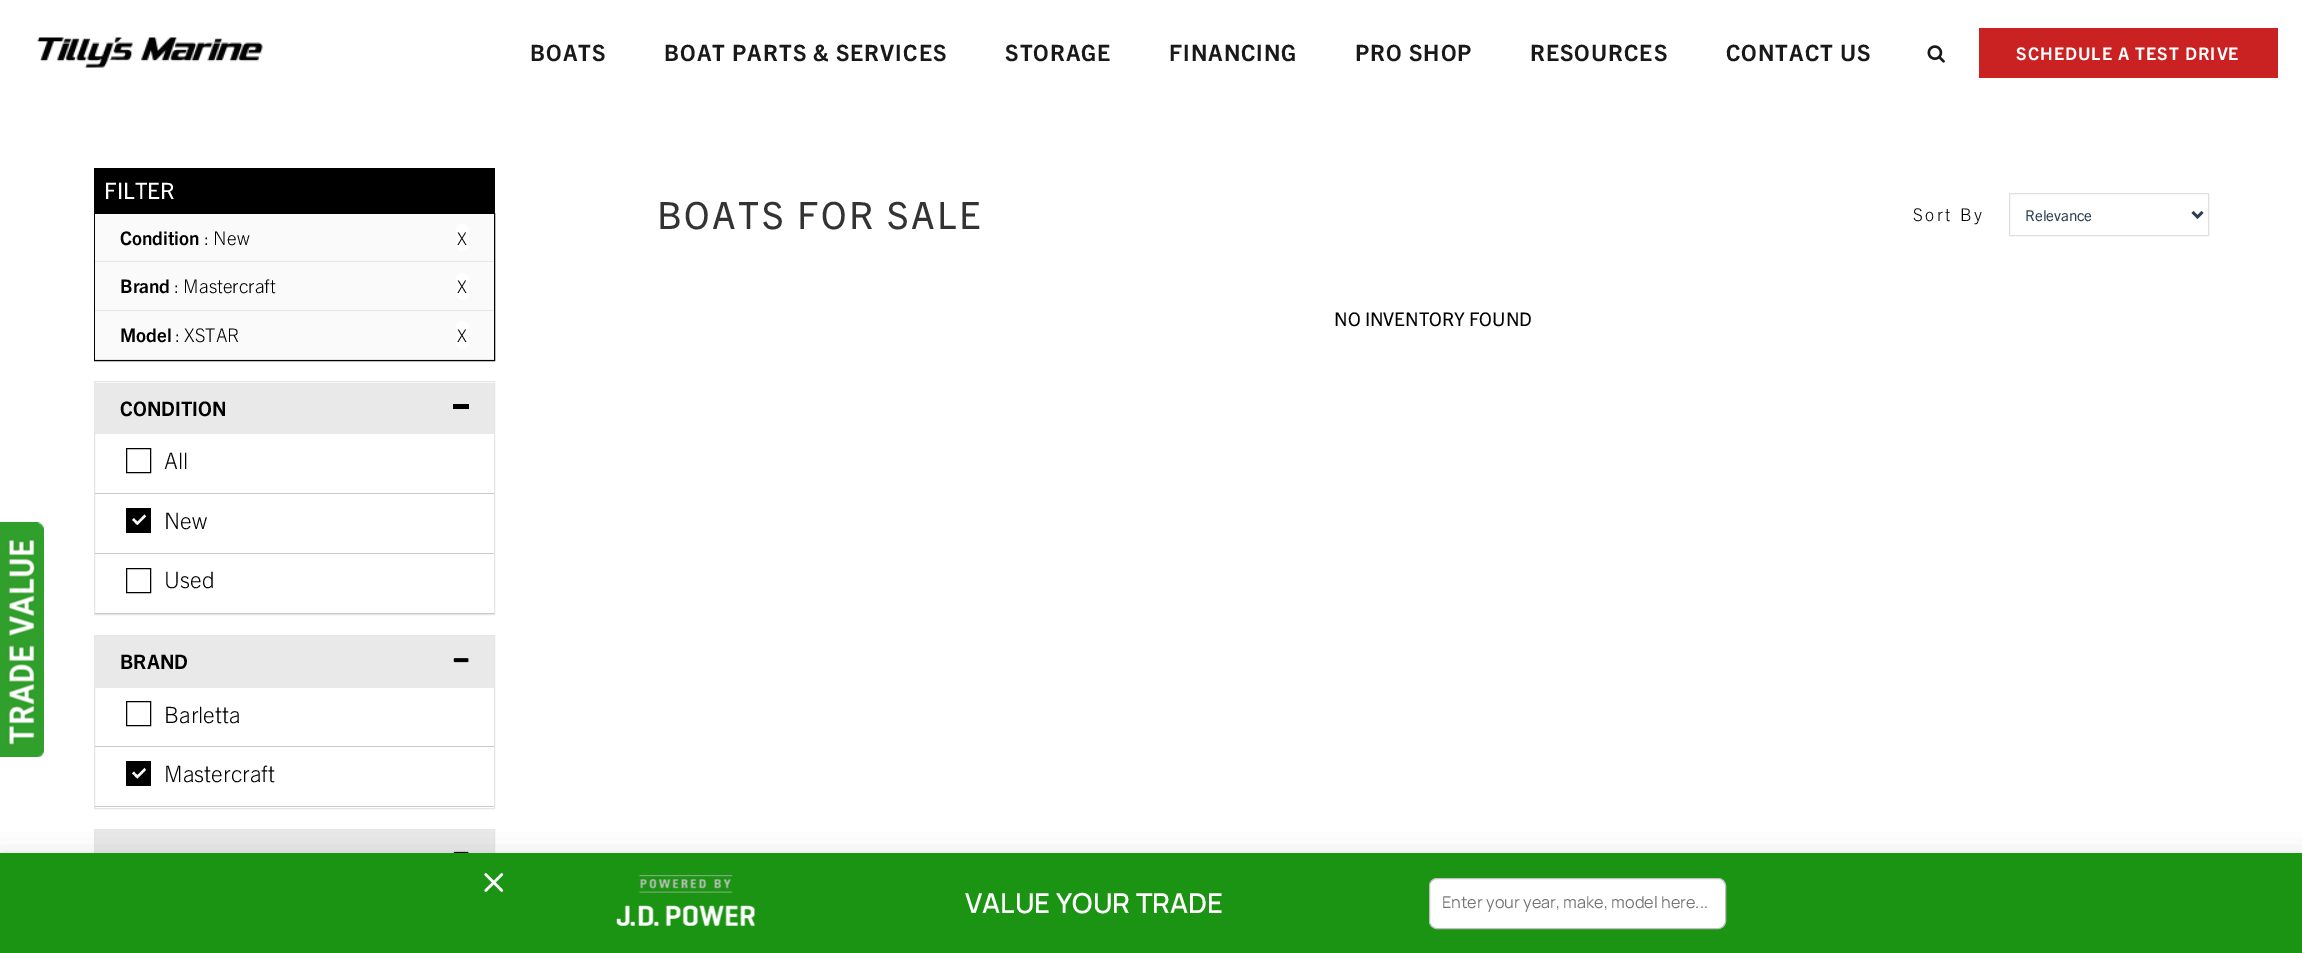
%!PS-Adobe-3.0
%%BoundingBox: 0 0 2302 953
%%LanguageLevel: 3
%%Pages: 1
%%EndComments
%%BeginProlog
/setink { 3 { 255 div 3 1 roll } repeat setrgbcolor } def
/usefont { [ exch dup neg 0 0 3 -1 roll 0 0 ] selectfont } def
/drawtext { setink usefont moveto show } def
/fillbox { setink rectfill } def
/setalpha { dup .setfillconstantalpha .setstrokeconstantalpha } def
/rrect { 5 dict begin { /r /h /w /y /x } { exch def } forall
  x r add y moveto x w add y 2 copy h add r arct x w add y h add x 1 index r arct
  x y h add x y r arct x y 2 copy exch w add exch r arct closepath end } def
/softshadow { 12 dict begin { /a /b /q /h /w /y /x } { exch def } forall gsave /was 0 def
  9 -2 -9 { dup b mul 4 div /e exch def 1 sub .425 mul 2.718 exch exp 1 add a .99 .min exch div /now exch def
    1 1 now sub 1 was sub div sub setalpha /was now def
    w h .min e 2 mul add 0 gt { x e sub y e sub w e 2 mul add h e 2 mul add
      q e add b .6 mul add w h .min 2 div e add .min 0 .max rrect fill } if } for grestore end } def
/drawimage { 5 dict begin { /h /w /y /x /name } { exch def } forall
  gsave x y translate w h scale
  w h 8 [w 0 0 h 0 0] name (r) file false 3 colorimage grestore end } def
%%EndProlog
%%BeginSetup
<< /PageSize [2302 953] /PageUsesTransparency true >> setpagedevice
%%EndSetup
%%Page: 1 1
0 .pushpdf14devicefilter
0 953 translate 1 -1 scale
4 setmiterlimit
0 0 2302 953 255 255 255 fillbox
(assets/img1.rgb) 0 522 44 235 drawimage
(assets/img2.rgb) 37 37 226 31 drawimage
/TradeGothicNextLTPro-Bold 22.5 usefont
25 25 25 setink
530 61 moveto 1 0 (BOATS) ashow
664 61 moveto 1 0 (BOAT PARTS & SERVICES) ashow
1005 61 moveto 1 0 (STORAGE) ashow
1169 61 moveto 1 0 (FINANCING) ashow
1355 61 moveto 1 0 (PRO SHOP) ashow
1530 61 moveto 1 0 (RESOURCES) ashow
1726 61 moveto 1 0 (CONTACT US) ashow
(assets/img3.rgb) 1927 45 18 18 drawimage
1979 28 299 50 202 33 35 fillbox
/TradeGothicNextLTPro-Bold 17.5 usefont
255 255 255 setink
2016 60 moveto 1 0 (SCHEDULE A TEST DRIVE) ashow
94 168 401 45 0 0 0 fillbox
(FILTER) 104 199 /TradeGothicNextLTPro-Regular 22.5 255 255 255 drawtext
0 0 0 setink
94.5 213.5 400 147 rectstroke
95 214 399 96 250 250 250 fillbox
95 261 399 1 230 230 230 fillbox
(Condition) 120 245 /TradeGothicNextLTPro-Bold 18.75 0 0 0 drawtext
(: New) 204 245 /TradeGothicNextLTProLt-Light 18.75 0 0 0 drawtext
255 255 255 setink
456 224 13 27 6.5 rrect fill
(X) 457 245 /TradeGothicNextLTProLt-Light 17.5 0 0 0 drawtext
95 310 399 1 230 230 230 fillbox
(Brand) 120 293 /TradeGothicNextLTPro-Bold 18.75 0 0 0 drawtext
(: Mastercraft) 174 293 /TradeGothicNextLTProLt-Light 18.75 0 0 0 drawtext
255 255 255 setink
456 273 13 27 6.5 rrect fill
(X) 457 293 /TradeGothicNextLTProLt-Light 17.5 0 0 0 drawtext
95 311 399 48 250 250 250 fillbox
95 359 399 1 230 230 230 fillbox
(Model) 120 342 /TradeGothicNextLTPro-Bold 18.75 0 0 0 drawtext
(: XSTAR) 175 342 /TradeGothicNextLTProLt-Light 18.75 0 0 0 drawtext
255 255 255 setink
456 321 13 28 6.5 rrect fill
(X) 457 342 /TradeGothicNextLTProLt-Light 17.5 0 0 0 drawtext
230 230 230 setink
94.5 381.5 400 233 rectstroke
95 383 399 51 233 233 233 fillbox
(CONDITION) 120 416 /TradeGothicNextLTPro-Bold 20 0 0 0 drawtext
453 404 16 5 0 0 0 fillbox
95 493 399 1 202 202 202 fillbox
0 0 0 setink
126.5 448.5 24 24 rectstroke
(All) 164 469 /TradeGothicNextLTProLt-Light 22.5 0 0 0 drawtext
95 553 399 1 202 202 202 fillbox
126 508 25 25 0 0 0 fillbox
(New) 164 529 /TradeGothicNextLTProLt-Light 22.5 0 0 0 drawtext
255 255 255 setink
144.5 514.5 moveto 146 516.5 lineto 144.5 518 lineto 142.5 516.5 lineto closepath fill
142.5 516.5 moveto 144.5 518 lineto 142.5 520 lineto 141 518 lineto closepath fill
141 518 moveto 142.5 520 lineto 141 521.5 lineto 139 520 lineto closepath fill
139 520 moveto 141 521.5 lineto 139 523.5 lineto 137.5 521.5 lineto closepath fill
137.5 521.5 moveto 139 523.5 lineto 137.5 525 lineto 135.5 523.5 lineto closepath fill
135.5 520 moveto 137.5 521.5 lineto 135.5 523.5 lineto 134 521.5 lineto closepath fill
134 518 moveto 135.5 520 lineto 134 521.5 lineto 132 520 lineto closepath fill
95 613 399 1 202 202 202 fillbox
0 0 0 setink
126.5 568.5 24 24 rectstroke
(Used) 164 588 /TradeGothicNextLTProLt-Light 22.5 0 0 0 drawtext
230 230 230 setink
94.5 635.5 400 173 rectstroke
95 636 399 52 233 233 233 fillbox
(BRAND) 120 669 /TradeGothicNextLTPro-Bold 20 0 0 0 drawtext
(assets/img4.rgb) 453 658 16 5 drawimage
95 746 399 1 202 202 202 fillbox
0 0 0 setink
126.5 701.5 24 24 rectstroke
(Barletta) 164 723 /TradeGothicNextLTProLt-Light 22.5 0 0 0 drawtext
95 806 399 1 202 202 202 fillbox
126 761 25 25 0 0 0 fillbox
(Mastercraft) 164 782 /TradeGothicNextLTProLt-Light 22.5 0 0 0 drawtext
255 255 255 setink
144.5 768 moveto 146 770 lineto 144.5 771.5 lineto 142.5 770 lineto closepath fill
142.5 770 moveto 144.5 771.5 lineto 142.5 773.5 lineto 141 771.5 lineto closepath fill
141 771.5 moveto 142.5 773.5 lineto 141 775 lineto 139 773.5 lineto closepath fill
139 773.5 moveto 141 775 lineto 139 777 lineto 137.5 775 lineto closepath fill
137.5 775 moveto 139 777 lineto 137.5 778.5 lineto 135.5 777 lineto closepath fill
135.5 773.5 moveto 137.5 775 lineto 135.5 777 lineto 134 775 lineto closepath fill
134 771.5 moveto 135.5 773.5 lineto 134 775 lineto 132 773.5 lineto closepath fill
230 230 230 setink
94.5 829.5 400 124 rectstroke
95 830 399 23 233 233 233 fillbox
(assets/img5.rgb) 453 851 16 2 drawimage
/TradeGothicNextLTPro-Regular 37.5 usefont
51 51 51 setink
657 229 moveto 2.5 0 (BOATS FOR SALE) ashow
/TradeGothicNextLTProLt-Light 17.5 usefont
0 0 0 setink
1913 221 moveto 2.5 0 (Sort By) ashow
222 223 224 setink
2009.5 193.5 199 42 rectstroke
44 62 80 setink
2.5 setlinewidth
2192.5 212 moveto 2197.5 217 lineto 2202.5 212 lineto stroke
(Relevance) 2025 221 /TradeGothicNextLTPro-Regular 15 44 62 80 drawtext
(NO INVENTORY FOUND) 1334 326 /TradeGothicNextLTPro-Regular 18.75 0 0 0 drawtext
0 860 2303 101 0 12.5 0.19 softshadow
0 853 2302 100 27 147 19 fillbox
(assets/img6.rgb) 484 873 20 19 drawimage
(assets/img7.rgb) 616 875 139 51 drawimage
(VALUE YOUR TRADE) 965 913 /Manrope-SemiBold 27.5 255 255 255 drawtext
1429.5 878.5 296 50 7.5 rrect gsave fill grestore
192 192 192 setink
1 setlinewidth
stroke
(Enter your year, make, model here...) 1442 908 /Manrope-Regular 16.25 117 117 117 drawtext
.poppdf14devicefilter showpage
%%EOF
